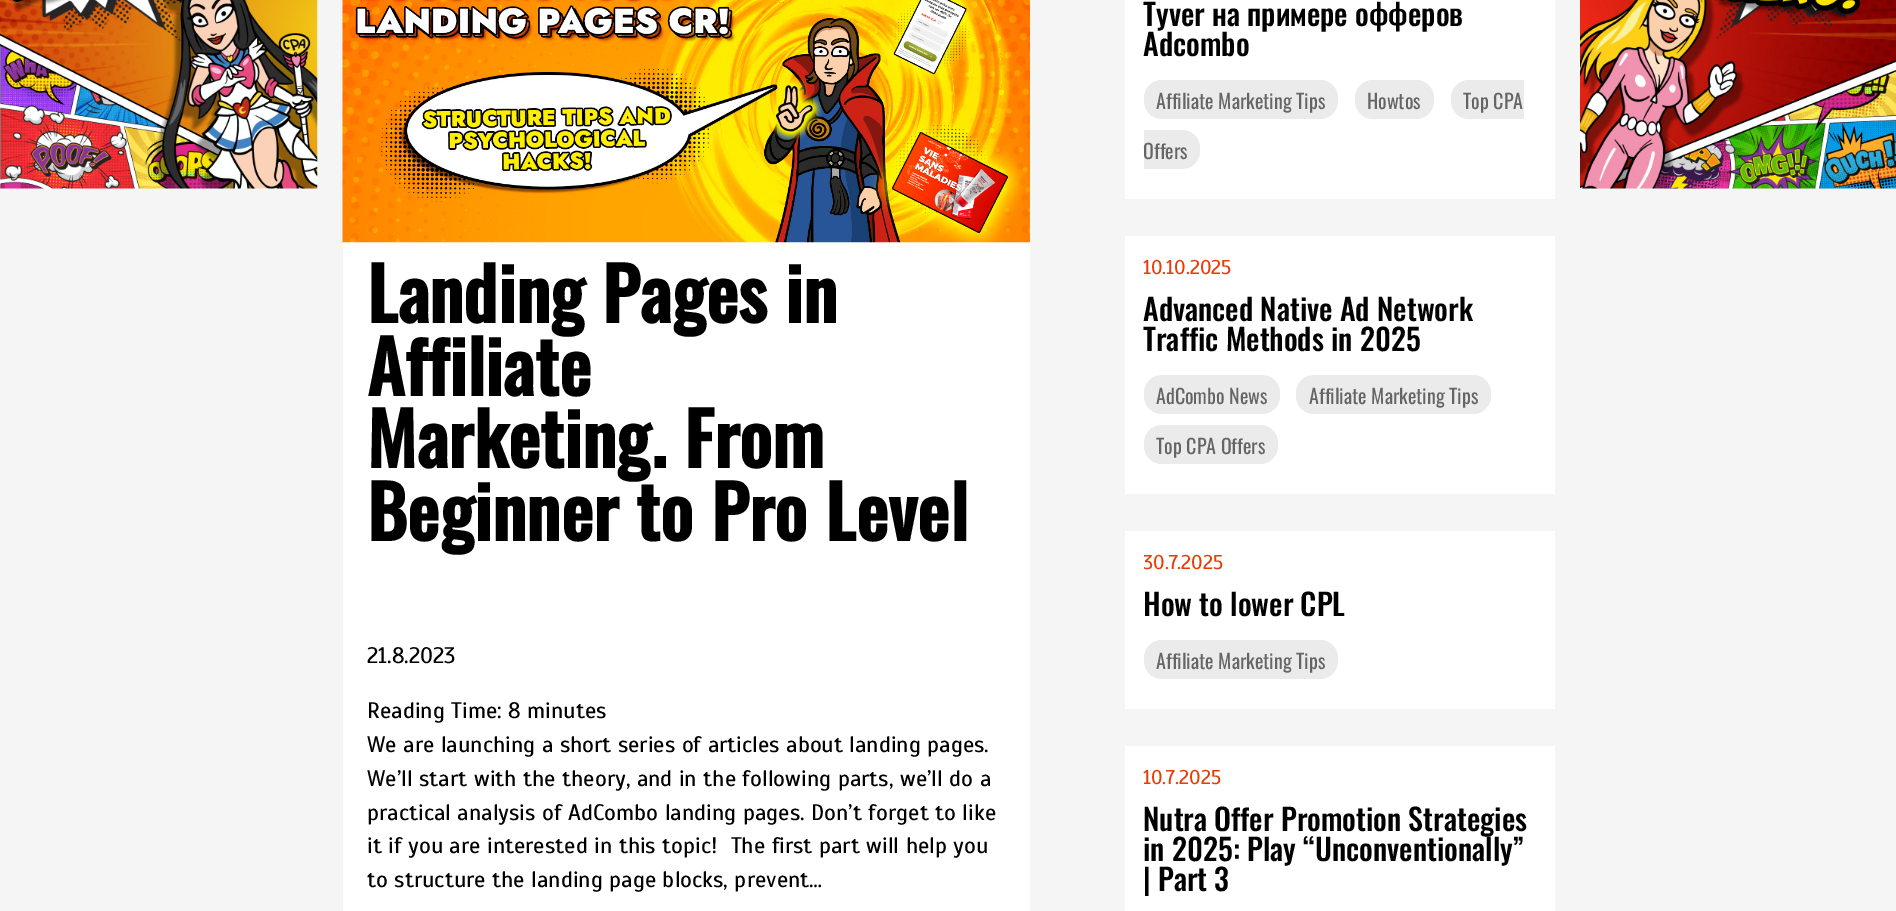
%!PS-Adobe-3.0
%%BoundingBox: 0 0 1896 911
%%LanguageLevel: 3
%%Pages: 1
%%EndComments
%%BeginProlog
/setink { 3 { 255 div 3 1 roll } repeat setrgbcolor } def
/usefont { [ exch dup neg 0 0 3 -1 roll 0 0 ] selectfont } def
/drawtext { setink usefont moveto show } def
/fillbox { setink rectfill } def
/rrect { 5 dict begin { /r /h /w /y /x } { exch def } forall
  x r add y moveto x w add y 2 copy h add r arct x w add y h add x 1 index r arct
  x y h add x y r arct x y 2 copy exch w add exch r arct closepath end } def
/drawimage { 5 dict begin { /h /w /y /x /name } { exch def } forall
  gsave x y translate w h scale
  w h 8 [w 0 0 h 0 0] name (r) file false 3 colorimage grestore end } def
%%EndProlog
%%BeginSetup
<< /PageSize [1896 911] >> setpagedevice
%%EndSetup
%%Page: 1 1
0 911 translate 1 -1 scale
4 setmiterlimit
0 0 1896 911 245 245 245 fillbox
(assets/img1.rgb) 0 0 318 189 drawimage
343 242 687 669 255 255 255 fillbox
(assets/img2.rgb) 342 0 688 243 drawimage
(Landing Pages in) 367 323 /Oswald-Bold 72.5 0 0 0 drawtext
(Affiliate) 367 396 /Oswald-Bold 72.5 0 0 0 drawtext
(Marketing. From) 367 468 /Oswald-Bold 72.5 0 0 0 drawtext
(Beginner to Pro Level) 367 541 /Oswald-Bold 72.5 0 0 0 drawtext
(21.8.2023) 367 663 /Scada-Regular 22.5 0 0 0 drawtext
(Reading Time: 8 minutes) 367 718 /Scada-Regular 22.5 0 0 0 drawtext
(We are launching a short series of articles about landing pages.) 367 752 /Scada-Regular 22.5 0 0 0 drawtext
(We’ll start with the theory, and in the following parts, we’ll do a) 367 786 /Scada-Regular 22.5 0 0 0 drawtext
(practical analysis of AdCombo landing pages. Don’t forget to like) 367 820 /Scada-Regular 22.5 0 0 0 drawtext
(it if you are interested in this topic!  The first part will help you) 367 853 /Scada-Regular 22.5 0 0 0 drawtext
(to structure the landing page blocks, prevent…) 367 887 /Scada-Regular 22.5 0 0 0 drawtext
1125 0 430 199 255 255 255 fillbox
(Tyver на примере офферов) 1143 26 /Oswald-Medium 30 0 0 0 drawtext
(Adcombo) 1143 56 /Oswald-Medium 30 0 0 0 drawtext
235 235 235 setink
1144 80 194 39 18 rrect fill
(Affiliate Marketing Tips) 1156 109 /Oswald-Regular 20 101 101 101 drawtext
235 235 235 setink
1355 80 79 39 18 rrect fill
(Howtos) 1367 109 /Oswald-Regular 20 101 101 101 drawtext
235 235 235 setink
1469 80 moveto 1524 80 lineto 1524 119 lineto 1469 119 lineto 1459 119 1451 111 1451 101 curveto 1451 98 lineto 1451 88 1459 80 1469 80 curveto closepath fill
(Top CPA) 1463 109 /Oswald-Regular 20 101 101 101 drawtext
235 235 235 setink
1144 130 moveto 1182 130 lineto 1192 130 1200 138 1200 148 curveto 1200 151 lineto 1200 161 1192 169 1182 169 curveto 1144 169 lineto closepath fill
(Offers) 1143 159 /Oswald-Regular 20 101 101 101 drawtext
1125 236 430 258 255 255 255 fillbox
(10.10.2025) 1143 274 /Scada-Regular 20 231 62 7 drawtext
(Advanced Native Ad Network) 1143 321 /Oswald-Medium 30 0 0 0 drawtext
(Traffic Methods in 2025) 1143 351 /Oswald-Medium 30 0 0 0 drawtext
235 235 235 setink
1144 375 136 39 18 rrect fill
(AdCombo News) 1156 404 /Oswald-Regular 20 101 101 101 drawtext
235 235 235 setink
1296 375 195 39 18 rrect fill
(Affiliate Marketing Tips) 1309 404 /Oswald-Regular 20 101 101 101 drawtext
235 235 235 setink
1144 425 134 39 18 rrect fill
(Top CPA Offers) 1156 454 /Oswald-Regular 20 101 101 101 drawtext
1125 531 430 178 255 255 255 fillbox
gsave
1144 550 392 38 rectclip
(30.7.2025) 1143 569 /Scada-Regular 20 231 62 7 drawtext
grestore
(How to lower CPL) 1143 616 /Oswald-Medium 30 0 0 0 drawtext
235 235 235 setink
1144 640 194 39 18 rrect fill
(Affiliate Marketing Tips) 1156 669 /Oswald-Regular 20 101 101 101 drawtext
1125 746 430 165 255 255 255 fillbox
(10.7.2025) 1143 784 /Scada-Regular 20 231 62 7 drawtext
(Nutra Offer Promotion Strategies) 1143 831 /Oswald-Medium 30 0 0 0 drawtext
(in 2025: Play “Unconventionally”) 1143 861 /Oswald-Medium 30 0 0 0 drawtext
(| Part 3) 1143 891 /Oswald-Medium 30 0 0 0 drawtext
(assets/img3.rgb) 1580 0 316 189 drawimage
showpage
%%EOF
